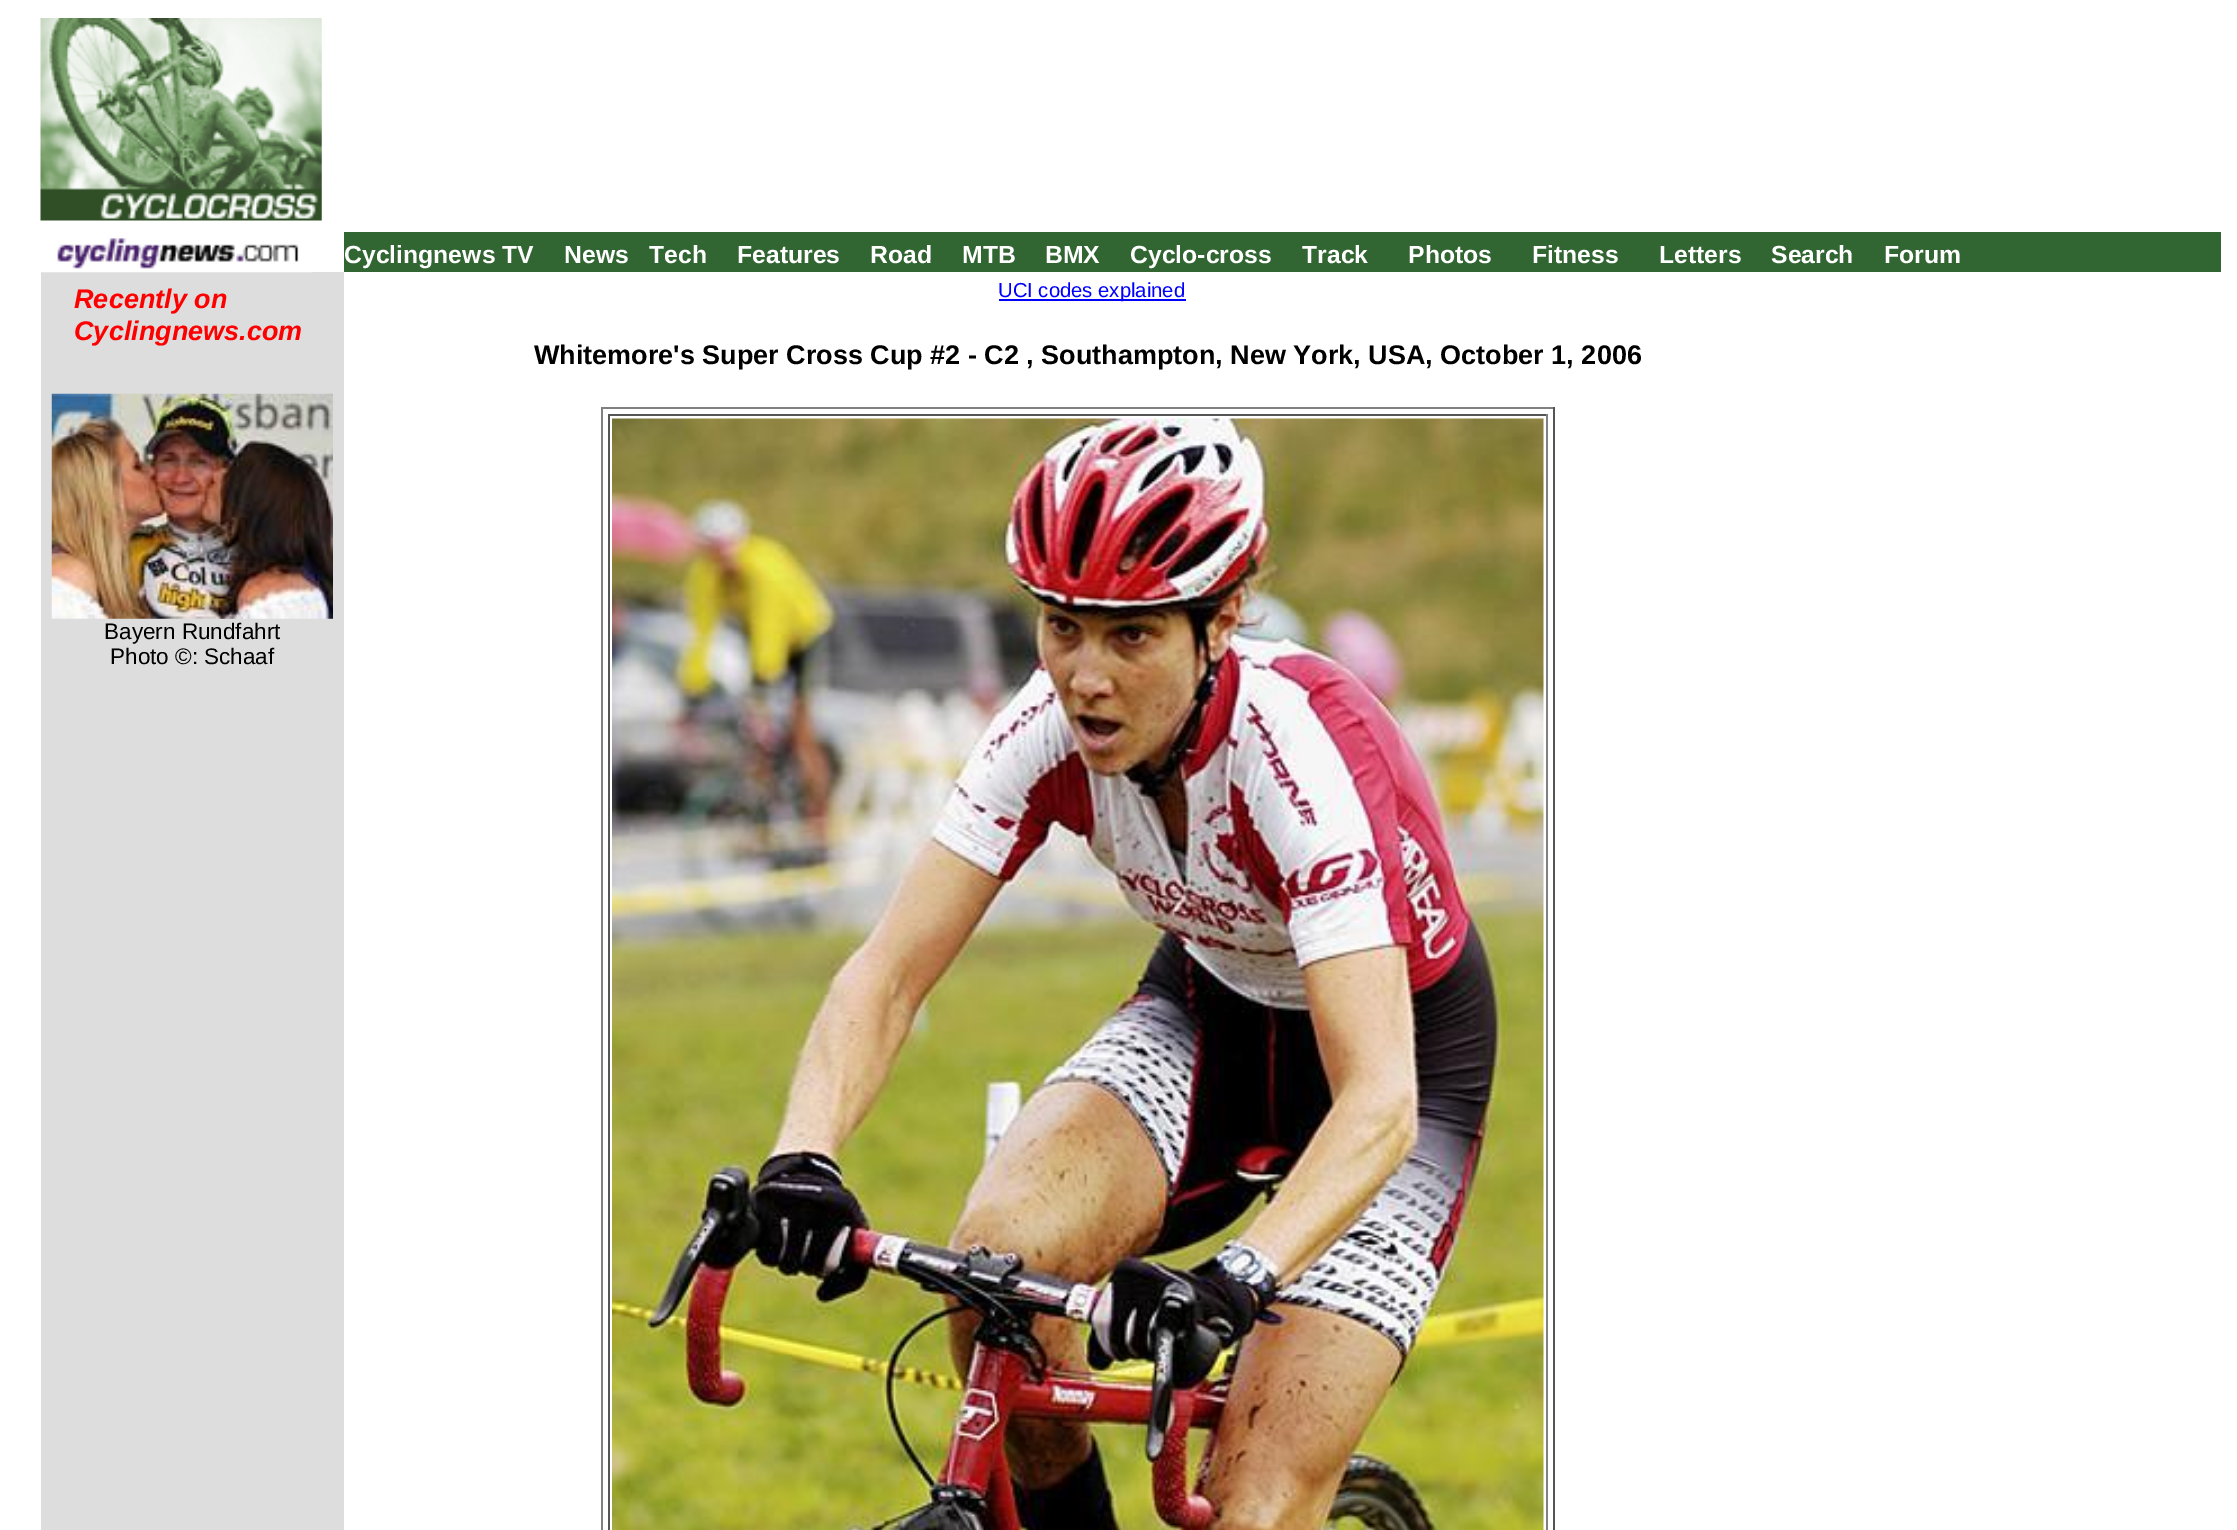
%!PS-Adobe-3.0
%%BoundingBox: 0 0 2237 1530
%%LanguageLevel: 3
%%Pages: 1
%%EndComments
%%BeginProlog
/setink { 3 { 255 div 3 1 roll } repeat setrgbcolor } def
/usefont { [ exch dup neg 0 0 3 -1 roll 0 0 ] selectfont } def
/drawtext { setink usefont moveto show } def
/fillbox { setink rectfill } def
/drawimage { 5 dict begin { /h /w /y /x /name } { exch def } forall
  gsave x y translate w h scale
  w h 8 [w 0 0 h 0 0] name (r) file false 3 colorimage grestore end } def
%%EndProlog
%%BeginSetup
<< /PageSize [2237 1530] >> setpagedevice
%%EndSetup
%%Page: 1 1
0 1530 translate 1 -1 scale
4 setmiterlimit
0 0 2237 1530 255 255 255 fillbox
(assets/img1.rgb) 40 18 282 203 drawimage
41 272 303 1258 221 221 221 fillbox
(assets/img2.rgb) 41 238 272 35 drawimage
344 232 1877 40 49 101 49 fillbox
(Cyclingnews TV) 344 263 /LiberationSans-Bold 24.75 255 255 255 drawtext
(News) 564 263 /LiberationSans-Bold 24.75 255 255 255 drawtext
(Tech) 649 263 /LiberationSans-Bold 24.75 255 255 255 drawtext
(Features) 737 263 /LiberationSans-Bold 24.75 255 255 255 drawtext
(Road) 870 263 /LiberationSans-Bold 24.75 255 255 255 drawtext
(MTB) 962 263 /LiberationSans-Bold 24.75 255 255 255 drawtext
(BMX) 1045 263 /LiberationSans-Bold 24.75 255 255 255 drawtext
(Cyclo-cross) 1130 263 /LiberationSans-Bold 24.75 255 255 255 drawtext
(Track) 1302 263 /LiberationSans-Bold 24.75 255 255 255 drawtext
(Photos) 1408 263 /LiberationSans-Bold 24.75 255 255 255 drawtext
(Fitness) 1532 263 /LiberationSans-Bold 24.75 255 255 255 drawtext
(Letters) 1659 263 /LiberationSans-Bold 24.75 255 255 255 drawtext
(Search) 1771 263 /LiberationSans-Bold 24.75 255 255 255 drawtext
(Forum) 1884 263 /LiberationSans-Bold 24.75 255 255 255 drawtext
(Recently on) 74 308 /LiberationSans-BoldItalic 27 255 0 0 drawtext
(Cyclingnews.com) 74 340 /LiberationSans-BoldItalic 27 255 0 0 drawtext
(assets/img3.rgb) 51 393 282 226 drawimage
(Bayern Rundfahrt) 104 639 /LiberationSans-Regular 22.5 0 0 0 drawtext
(Photo ©: Schaaf) 110 664 /LiberationSans-Regular 22.5 0 0 0 drawtext
999 299 187 2 0 0 255 fillbox
(UCI codes explained) 998 297 /LiberationSans-Regular 20.25 0 0 255 drawtext
(Whitemore's Super Cross Cup #2 - C2 , Southampton, New York, USA, October 1, 2006) 534 364 /LiberationSans-Bold 27 0 0 0 drawtext
601 407 954 2 128 128 128 fillbox
1553 407 2 1123 85 85 85 fillbox
601 407 2 1123 128 128 128 fillbox
608 414 940 2 85 85 85 fillbox
1546 414 2 1116 128 128 128 fillbox
608 414 2 1116 85 85 85 fillbox
(assets/img4.rgb) 612 418 932 1112 drawimage
showpage
%%EOF
